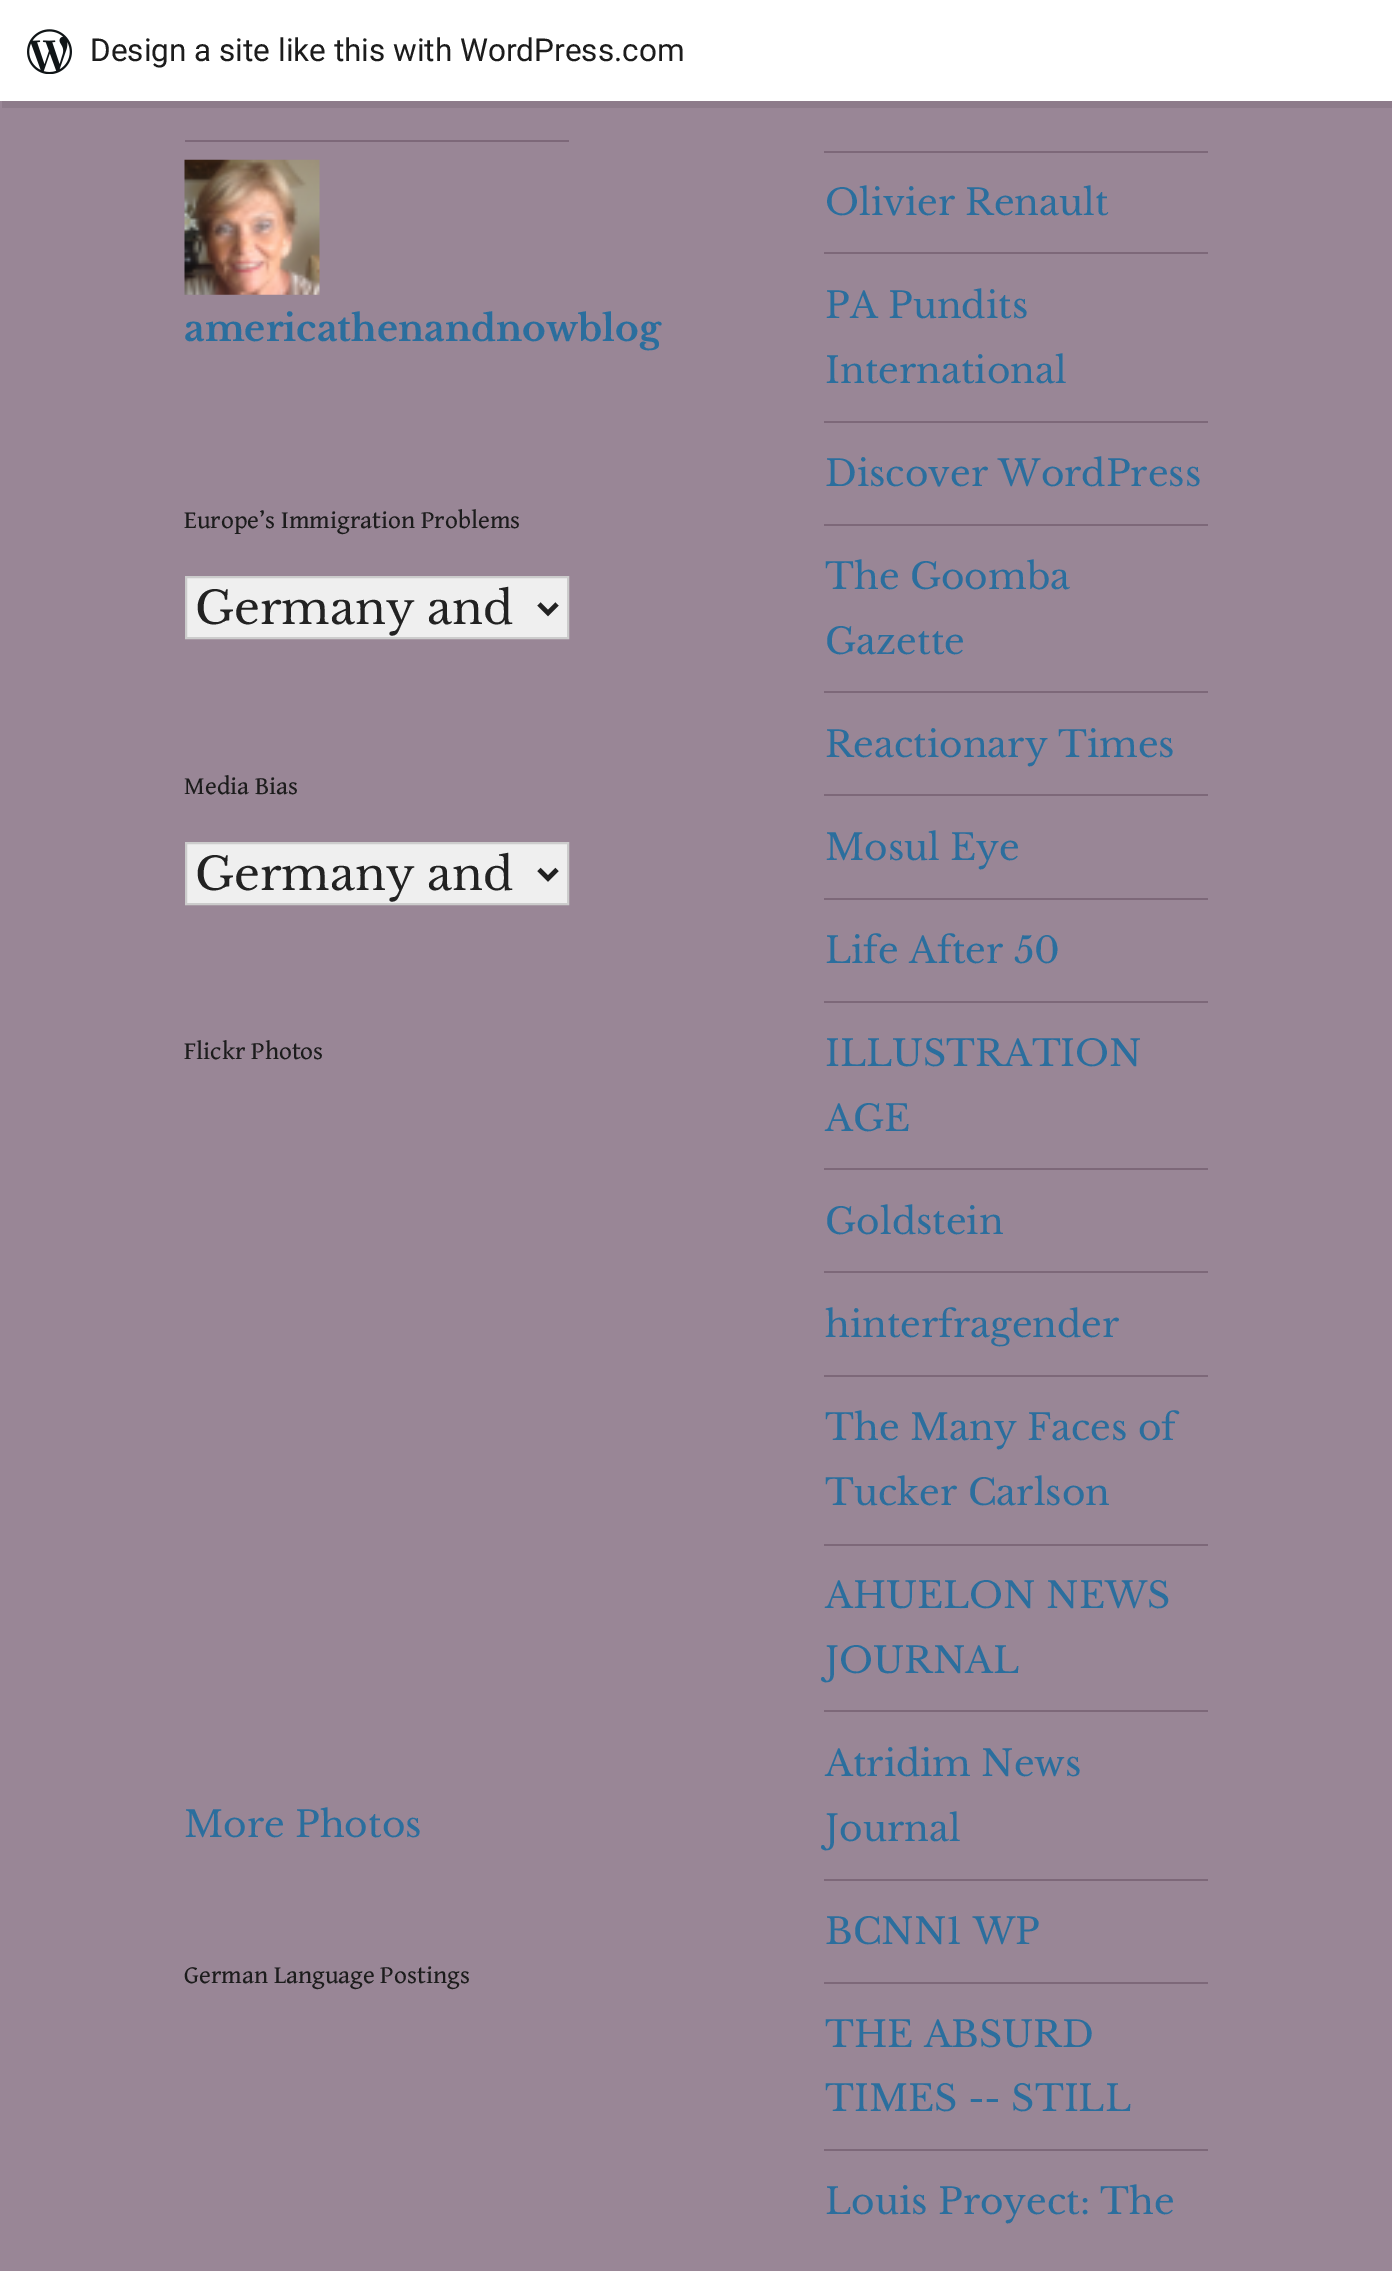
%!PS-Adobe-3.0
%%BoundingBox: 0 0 1392 2271
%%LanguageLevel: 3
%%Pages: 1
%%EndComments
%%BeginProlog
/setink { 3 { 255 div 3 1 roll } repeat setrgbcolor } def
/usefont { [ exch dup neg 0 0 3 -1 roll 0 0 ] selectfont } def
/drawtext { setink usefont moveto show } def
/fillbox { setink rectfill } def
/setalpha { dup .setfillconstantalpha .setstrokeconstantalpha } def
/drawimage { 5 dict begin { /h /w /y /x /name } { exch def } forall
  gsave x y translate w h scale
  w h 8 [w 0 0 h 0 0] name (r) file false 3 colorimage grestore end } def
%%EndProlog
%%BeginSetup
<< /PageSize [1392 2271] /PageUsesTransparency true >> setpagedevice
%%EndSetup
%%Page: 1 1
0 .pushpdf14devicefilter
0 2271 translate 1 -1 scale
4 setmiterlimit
0 0 1392 2271 153 134 150 fillbox
0.08 setalpha
0 0 0 setink
2 101 moveto 2 108 lineto 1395 108 lineto 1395 7 lineto 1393 7 lineto 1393 101 lineto closepath fill
1 setalpha
0 0 1392 101 255 255 255 fillbox
(assets/img1.rgb) 27 29 45 45 drawimage
(Design a site like this with WordPress.com) 90 61 /Roboto-Regular 31.5 28 28 28 drawtext
185 140 384 2 125 104 121 fillbox
(assets/img2.rgb) 184 159 136 136 drawimage
(americathenandnowblog) 184 341 /LibreBaskerville-Bold 36 43 110 157 drawtext
(Europe’s Immigration Problems) 184 528 /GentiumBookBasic-Regular 25.25 28 28 28 drawtext
239 239 239 setink
186 577 moveto 568 577 lineto 568 638 lineto 186 638 lineto closepath gsave fill grestore
204 204 204 setink
2 setlinewidth
stroke
34 34 34 setink
4.5 setlinewidth
539 604 moveto 548 613 lineto 557 604 lineto stroke
(Germany and) 195 624 /LibreBaskerville-Regular 45 34 34 34 drawtext
(Media Bias) 184 794 /GentiumBookBasic-Regular 25.25 28 28 28 drawtext
239 239 239 setink
186 843 moveto 568 843 lineto 568 904 lineto 186 904 lineto closepath gsave fill grestore
204 204 204 setink
2 setlinewidth
stroke
34 34 34 setink
4.5 setlinewidth
539 869.5 moveto 548 878.5 lineto 557 869.5 lineto stroke
(Germany and) 195 890 /LibreBaskerville-Regular 45 34 34 34 drawtext
(Flickr Photos) 184 1059 /GentiumBookBasic-Regular 25.25 28 28 28 drawtext
(More Photos) 184 1837 /LibreBaskerville-Regular 36 43 110 157 drawtext
(German Language Postings) 184 1983 /GentiumBookBasic-Regular 25.25 28 28 28 drawtext
824 151 384 2 125 104 121 fillbox
(Olivier Renault) 825 215 /LibreBaskerville-Regular 36 43 110 157 drawtext
824 252 384 2 125 104 121 fillbox
(PA Pundits) 825 318 /LibreBaskerville-Regular 36 43 110 157 drawtext
(International) 825 383 /LibreBaskerville-Regular 36 43 110 157 drawtext
824 421 384 2 125 104 121 fillbox
(Discover WordPress) 825 486 /LibreBaskerville-Regular 36 43 110 157 drawtext
824 524 384 2 125 104 121 fillbox
(The Goomba) 825 589 /LibreBaskerville-Regular 36 43 110 157 drawtext
(Gazette) 825 654 /LibreBaskerville-Regular 36 43 110 157 drawtext
824 691 384 2 125 104 121 fillbox
(Reactionary Times) 825 757 /LibreBaskerville-Regular 36 43 110 157 drawtext
824 794 384 2 125 104 121 fillbox
(Mosul Eye) 825 860 /LibreBaskerville-Regular 36 43 110 157 drawtext
824 898 384 2 125 104 121 fillbox
(Life After 50) 825 963 /LibreBaskerville-Regular 36 43 110 157 drawtext
824 1001 384 2 125 104 121 fillbox
(ILLUSTRATION) 825 1066 /LibreBaskerville-Regular 36 43 110 157 drawtext
(AGE) 825 1131 /LibreBaskerville-Regular 36 43 110 157 drawtext
824 1168 384 2 125 104 121 fillbox
(Goldstein) 825 1234 /LibreBaskerville-Regular 36 43 110 157 drawtext
824 1271 384 2 125 104 121 fillbox
(hinterfragender) 825 1337 /LibreBaskerville-Regular 36 43 110 157 drawtext
824 1375 384 2 125 104 121 fillbox
(The Many Faces of) 825 1440 /LibreBaskerville-Regular 36 43 110 157 drawtext
(Tucker Carlson) 825 1505 /LibreBaskerville-Regular 36 43 110 157 drawtext
824 1544 384 2 125 104 121 fillbox
(AHUELON NEWS) 825 1608 /LibreBaskerville-Regular 36 43 110 157 drawtext
(JOURNAL) 825 1673 /LibreBaskerville-Regular 36 43 110 157 drawtext
824 1710 384 2 125 104 121 fillbox
(Atridim News) 825 1776 /LibreBaskerville-Regular 36 43 110 157 drawtext
(Journal) 825 1841 /LibreBaskerville-Regular 36 43 110 157 drawtext
824 1879 384 2 125 104 121 fillbox
(BCNN1 WP) 825 1944 /LibreBaskerville-Regular 36 43 110 157 drawtext
824 1982 384 2 125 104 121 fillbox
(THE ABSURD) 825 2047 /LibreBaskerville-Regular 36 43 110 157 drawtext
(TIMES -- STILL) 825 2111 /LibreBaskerville-Regular 36 43 110 157 drawtext
824 2149 384 2 125 104 121 fillbox
(Louis Proyect: The) 825 2214 /LibreBaskerville-Regular 36 43 110 157 drawtext
.poppdf14devicefilter showpage
%%EOF
